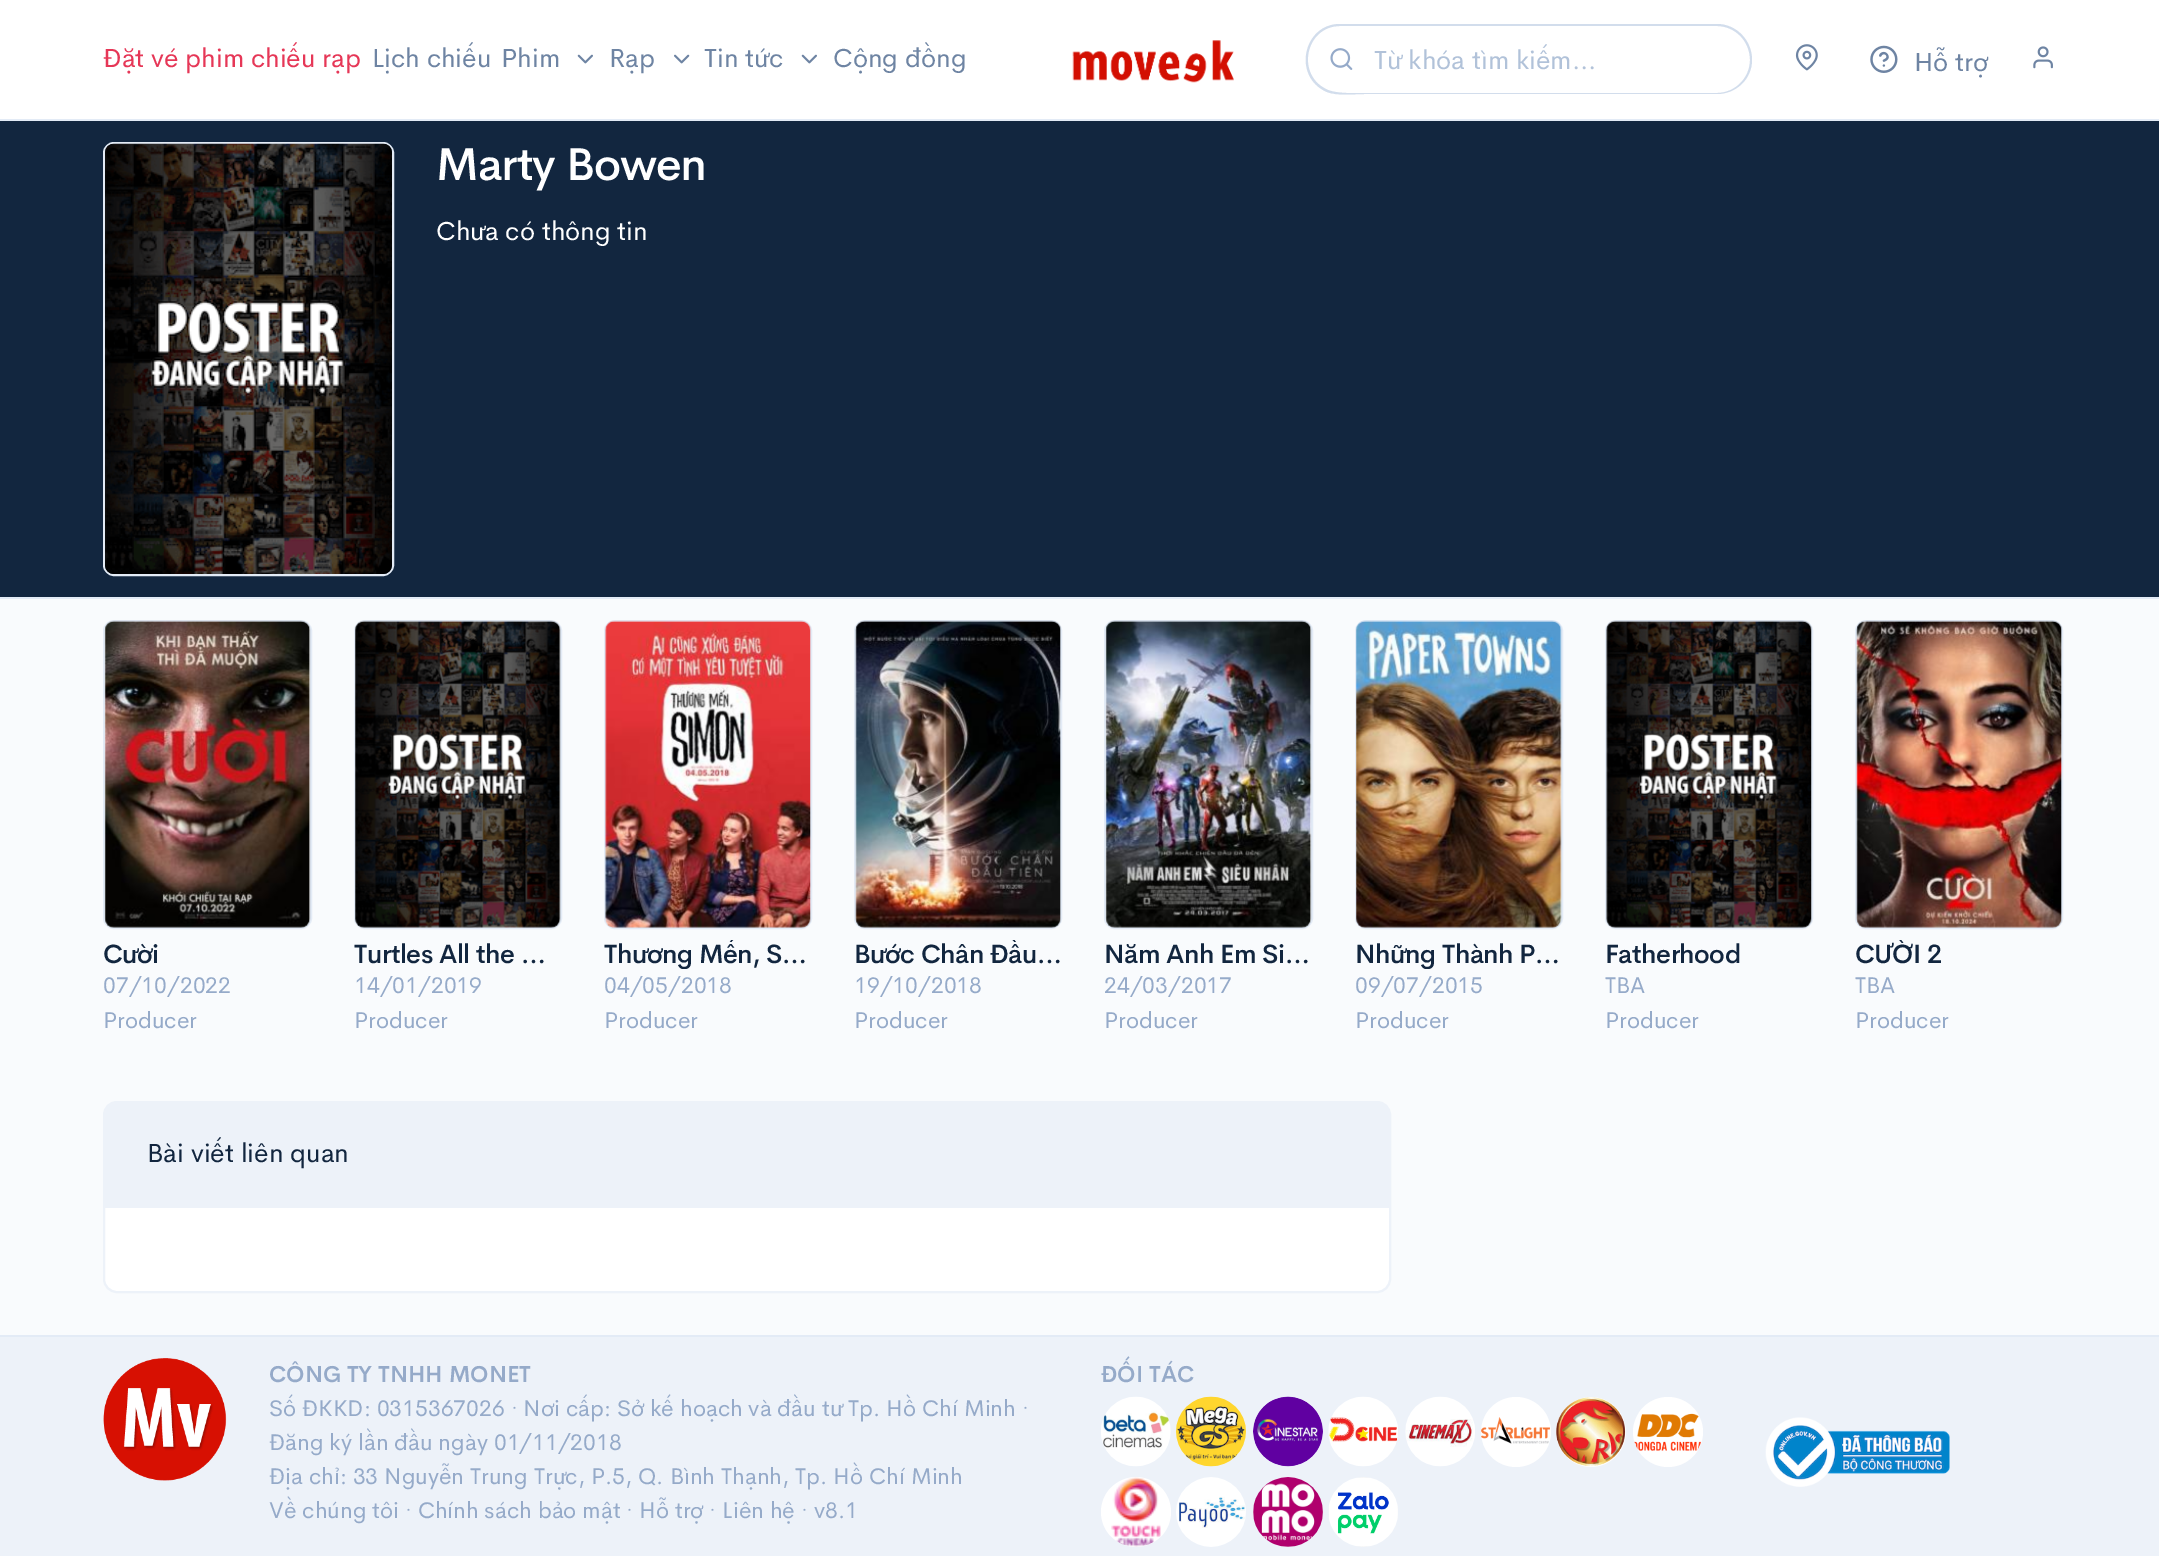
%!PS-Adobe-3.0
%%BoundingBox: 0 0 2159 1556
%%LanguageLevel: 3
%%Pages: 1
%%EndComments
%%BeginProlog
/setink { 3 { 255 div 3 1 roll } repeat setrgbcolor } def
/usefont { [ exch dup neg 0 0 3 -1 roll 0 0 ] selectfont } def
/drawtext { setink usefont moveto show } def
/fillbox { setink rectfill } def
/disc { newpath 0 360 arc closepath } def
/rrect { 5 dict begin { /r /h /w /y /x } { exch def } forall
  x r add y moveto x w add y 2 copy h add r arct x w add y h add x 1 index r arct
  x y h add x y r arct x y 2 copy exch w add exch r arct closepath end } def
/drawimage { 5 dict begin { /h /w /y /x /name } { exch def } forall
  gsave x y translate w h scale
  w h 8 [w 0 0 h 0 0] name (r) file false 3 colorimage grestore end } def
%%EndProlog
%%BeginSetup
<< /PageSize [2159 1556] >> setpagedevice
%%EndSetup
%%Page: 1 1
0 1556 translate 1 -1 scale
4 setmiterlimit
0 0 2159 1556 249 251 253 fillbox
0 0 2159 119 255 255 255 fillbox
0 119 2159 2 227 235 246 fillbox
(Đặt vé phim chiếu rạp) 103 67 /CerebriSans-Regular 26.25 230 55 87 drawtext
(Lịch chiếu) 372 67 /CerebriSans-Regular 26.25 110 132 163 drawtext
(Phim) 501 67 /CerebriSans-Regular 26.25 110 132 163 drawtext
(assets/img1.rgb) 577 54 16 10 drawimage
(Rạp) 609 67 /CerebriSans-Regular 26.25 110 132 163 drawtext
(assets/img2.rgb) 674 54 16 10 drawimage
(Tin tức) 704 67 /CerebriSans-Regular 26.25 110 132 163 drawtext
(assets/img1.rgb) 801 54 16 10 drawimage
(Cộng đồng) 833 67 /CerebriSans-Regular 26.25 110 132 163 drawtext
(assets/img3.rgb) 1072 40 162 43 drawimage
210 221 236 setink
1340 24 moveto 1365 24 lineto 1365 94 lineto 1353 94 1337 96 1327 92 curveto 1292 77 1303 24 1340 24 curveto closepath 1340 26 moveto 1365 26 lineto 1365 93 lineto 1354 93 1338 94 1328 90 curveto 1295 76 1305 26 1340 26 curveto closepath eofill
(assets/img4.rgb) 1330 48 23 22 drawimage
1363 24 moveto 1717 24 lineto 1736 24 1752 40 1752 60 curveto 1752 79 1736 94 1717 94 curveto 1363 94 lineto closepath 1363 26 moveto 1717 26 lineto 1735 26 1750 41 1750 60 curveto 1750 78 1735 93 1717 93 curveto 1363 93 lineto closepath eofill
(Từ khóa tìm kiếm...) 1374 69 /CerebriSans-Regular 26.25 177 194 217 drawtext
(assets/img5.rgb) 1795 44 23 27 drawimage
(assets/img6.rgb) 1870 45 28 28 drawimage
(Hỗ trợ) 1914 71 /CerebriSans-Regular 26.25 110 132 163 drawtext
(assets/img7.rgb) 2033 46 20 23 drawimage
0 121 2159 476 18 38 63 fillbox
0 597 2159 2 227 235 246 fillbox
2 setlinewidth
104 143 289 432 10 rrect stroke
(assets/img8.rgb) 105 143 287 431 drawimage
/CerebriSans-Medium 45.5 usefont
255 255 255 setink
436 180 moveto -1 0 (Marty Bowen) ashow
(Chưa có thông tin) 436 240 /CerebriSans-Regular 26.25 255 255 255 drawtext
227 235 246 setink
104 621 207 307 10 rrect stroke
(assets/img9.rgb) 104 620 207 308 drawimage
/CerebriSans-Medium 26.25 usefont
18 38 63 setink
103 963 moveto -0.5 0 (Cười) ashow
(07/10/2022) 103 993 /CerebriSans-Regular 22.75 149 170 201 drawtext
(Producer) 103 1028 /CerebriSans-Regular 22.75 149 170 201 drawtext
227 235 246 setink
355 621 206 307 10 rrect stroke
(assets/img10.rgb) 355 620 206 308 drawimage
/CerebriSans-Medium 26.25 usefont
18 38 63 setink
354 963 moveto -0.5 0 (Turtles All the …) ashow
(14/01/2019) 354 993 /CerebriSans-Regular 22.75 149 170 201 drawtext
(Producer) 354 1028 /CerebriSans-Regular 22.75 149 170 201 drawtext
227 235 246 setink
605 621 206 307 10 rrect stroke
(assets/img11.rgb) 605 620 206 308 drawimage
gsave
604 940 208 30 rectclip
/CerebriSans-Medium 26.25 usefont
18 38 63 setink
604 963 moveto -0.5 0 (Thương Mến, S…) ashow
grestore
(04/05/2018) 604 993 /CerebriSans-Regular 22.75 149 170 201 drawtext
(Producer) 604 1028 /CerebriSans-Regular 22.75 149 170 201 drawtext
227 235 246 setink
855 621 206 307 10 rrect stroke
(assets/img12.rgb) 855 620 206 308 drawimage
gsave
854 940 208 30 rectclip
/CerebriSans-Medium 26.25 usefont
18 38 63 setink
854 963 moveto -0.5 0 (Bước Chân Đầu…) ashow
grestore
(19/10/2018) 854 993 /CerebriSans-Regular 22.75 149 170 201 drawtext
(Producer) 854 1028 /CerebriSans-Regular 22.75 149 170 201 drawtext
227 235 246 setink
1105 621 207 307 10 rrect stroke
(assets/img13.rgb) 1105 620 207 308 drawimage
/CerebriSans-Medium 26.25 usefont
18 38 63 setink
1104 963 moveto -0.5 0 (Năm Anh Em Si…) ashow
(24/03/2017) 1104 993 /CerebriSans-Regular 22.75 149 170 201 drawtext
(Producer) 1104 1028 /CerebriSans-Regular 22.75 149 170 201 drawtext
227 235 246 setink
1356 621 206 307 10 rrect stroke
(assets/img14.rgb) 1356 620 206 308 drawimage
/CerebriSans-Medium 26.25 usefont
18 38 63 setink
1355 963 moveto -0.5 0 (Những Thành P…) ashow
(09/07/2015) 1355 993 /CerebriSans-Regular 22.75 149 170 201 drawtext
(Producer) 1355 1028 /CerebriSans-Regular 22.75 149 170 201 drawtext
227 235 246 setink
1606 621 206 307 10 rrect stroke
(assets/img15.rgb) 1606 620 206 308 drawimage
/CerebriSans-Medium 26.25 usefont
18 38 63 setink
1605 963 moveto -0.5 0 (Fatherhood) ashow
(TBA) 1605 993 /CerebriSans-Regular 22.75 149 170 201 drawtext
(Producer) 1605 1028 /CerebriSans-Regular 22.75 149 170 201 drawtext
227 235 246 setink
1856 621 206 307 10 rrect stroke
(assets/img16.rgb) 1856 620 206 308 drawimage
gsave
1855 940 208 30 rectclip
/CerebriSans-Medium 26.25 usefont
18 38 63 setink
1855 963 moveto -0.5 0 (CƯỜI 2) ashow
grestore
(TBA) 1855 993 /CerebriSans-Regular 22.75 149 170 201 drawtext
(Producer) 1855 1028 /CerebriSans-Regular 22.75 149 170 201 drawtext
255 255 255 setink
104 1102 1286 190 13 rrect gsave fill grestore
237 242 249 setink
stroke
117 1103 moveto 1378 1103 lineto 1384.5 1103 1390 1108.5 1390 1115 curveto 1390 1208 lineto 105 1208 lineto 105 1115 lineto 105 1108.5 110.5 1103 117 1103 curveto closepath fill
(Bài viết liên quan) 147 1162 /CerebriSans-Regular 26.25 18 38 63 drawtext
0 1337 2159 219 237 242 249 fillbox
0 1335 2159 2 227 235 246 fillbox
(assets/img17.rgb) 103 1358 124 123 drawimage
(CÔNG TY TNHH MONET) 269 1382 /CerebriSans-SemiBold 22.75 149 170 201 drawtext
(Số ĐKKD: 0315367026 · Nơi cấp: Sở kế hoạch và đầu tư Tp. Hồ Chí Minh ·) 269 1416 /CerebriSans-Regular 22.75 149 170 201 drawtext
(Đăng ký lần đầu ngày 01/11/2018) 269 1450 /CerebriSans-Regular 22.75 149 170 201 drawtext
(Địa chỉ: 33 Nguyễn Trung Trực, P.5, Q. Bình Thạnh, Tp. Hồ Chí Minh) 269 1484 /CerebriSans-Regular 22.75 149 170 201 drawtext
(Về chúng tôi · Chính sách bảo mật · Hỗ trợ · Liên hệ · v8.1) 269 1518 /CerebriSans-Regular 22.75 149 170 201 drawtext
(ĐỐI TÁC) 1101 1382 /CerebriSans-SemiBold 22.75 149 170 201 drawtext
(assets/img18.rgb) 1101 1396 70 71 drawimage
(assets/img19.rgb) 1176 1396 70 71 drawimage
(assets/img20.rgb) 1253 1396 70 71 drawimage
(assets/img21.rgb) 1328 1396 70 71 drawimage
(assets/img22.rgb) 1405 1396 70 71 drawimage
255 255 255 setink
1516 1432 35 disc fill
(assets/img23.rgb) 1481 1417 69 27 drawimage
1591 1432 35 disc fill
(assets/img24.rgb) 1556 1397 70 70 drawimage
1668 1432 35 disc fill
(assets/img25.rgb) 1634 1413 67 38 drawimage
1136 1512 35 disc fill
(assets/img26.rgb) 1111 1477 50 70 drawimage
(assets/img27.rgb) 1176 1477 70 70 drawimage
(assets/img28.rgb) 1253 1477 70 70 drawimage
(assets/img29.rgb) 1328 1477 70 70 drawimage
(assets/img30.rgb) 1765 1417 185 70 drawimage
showpage
%%EOF
